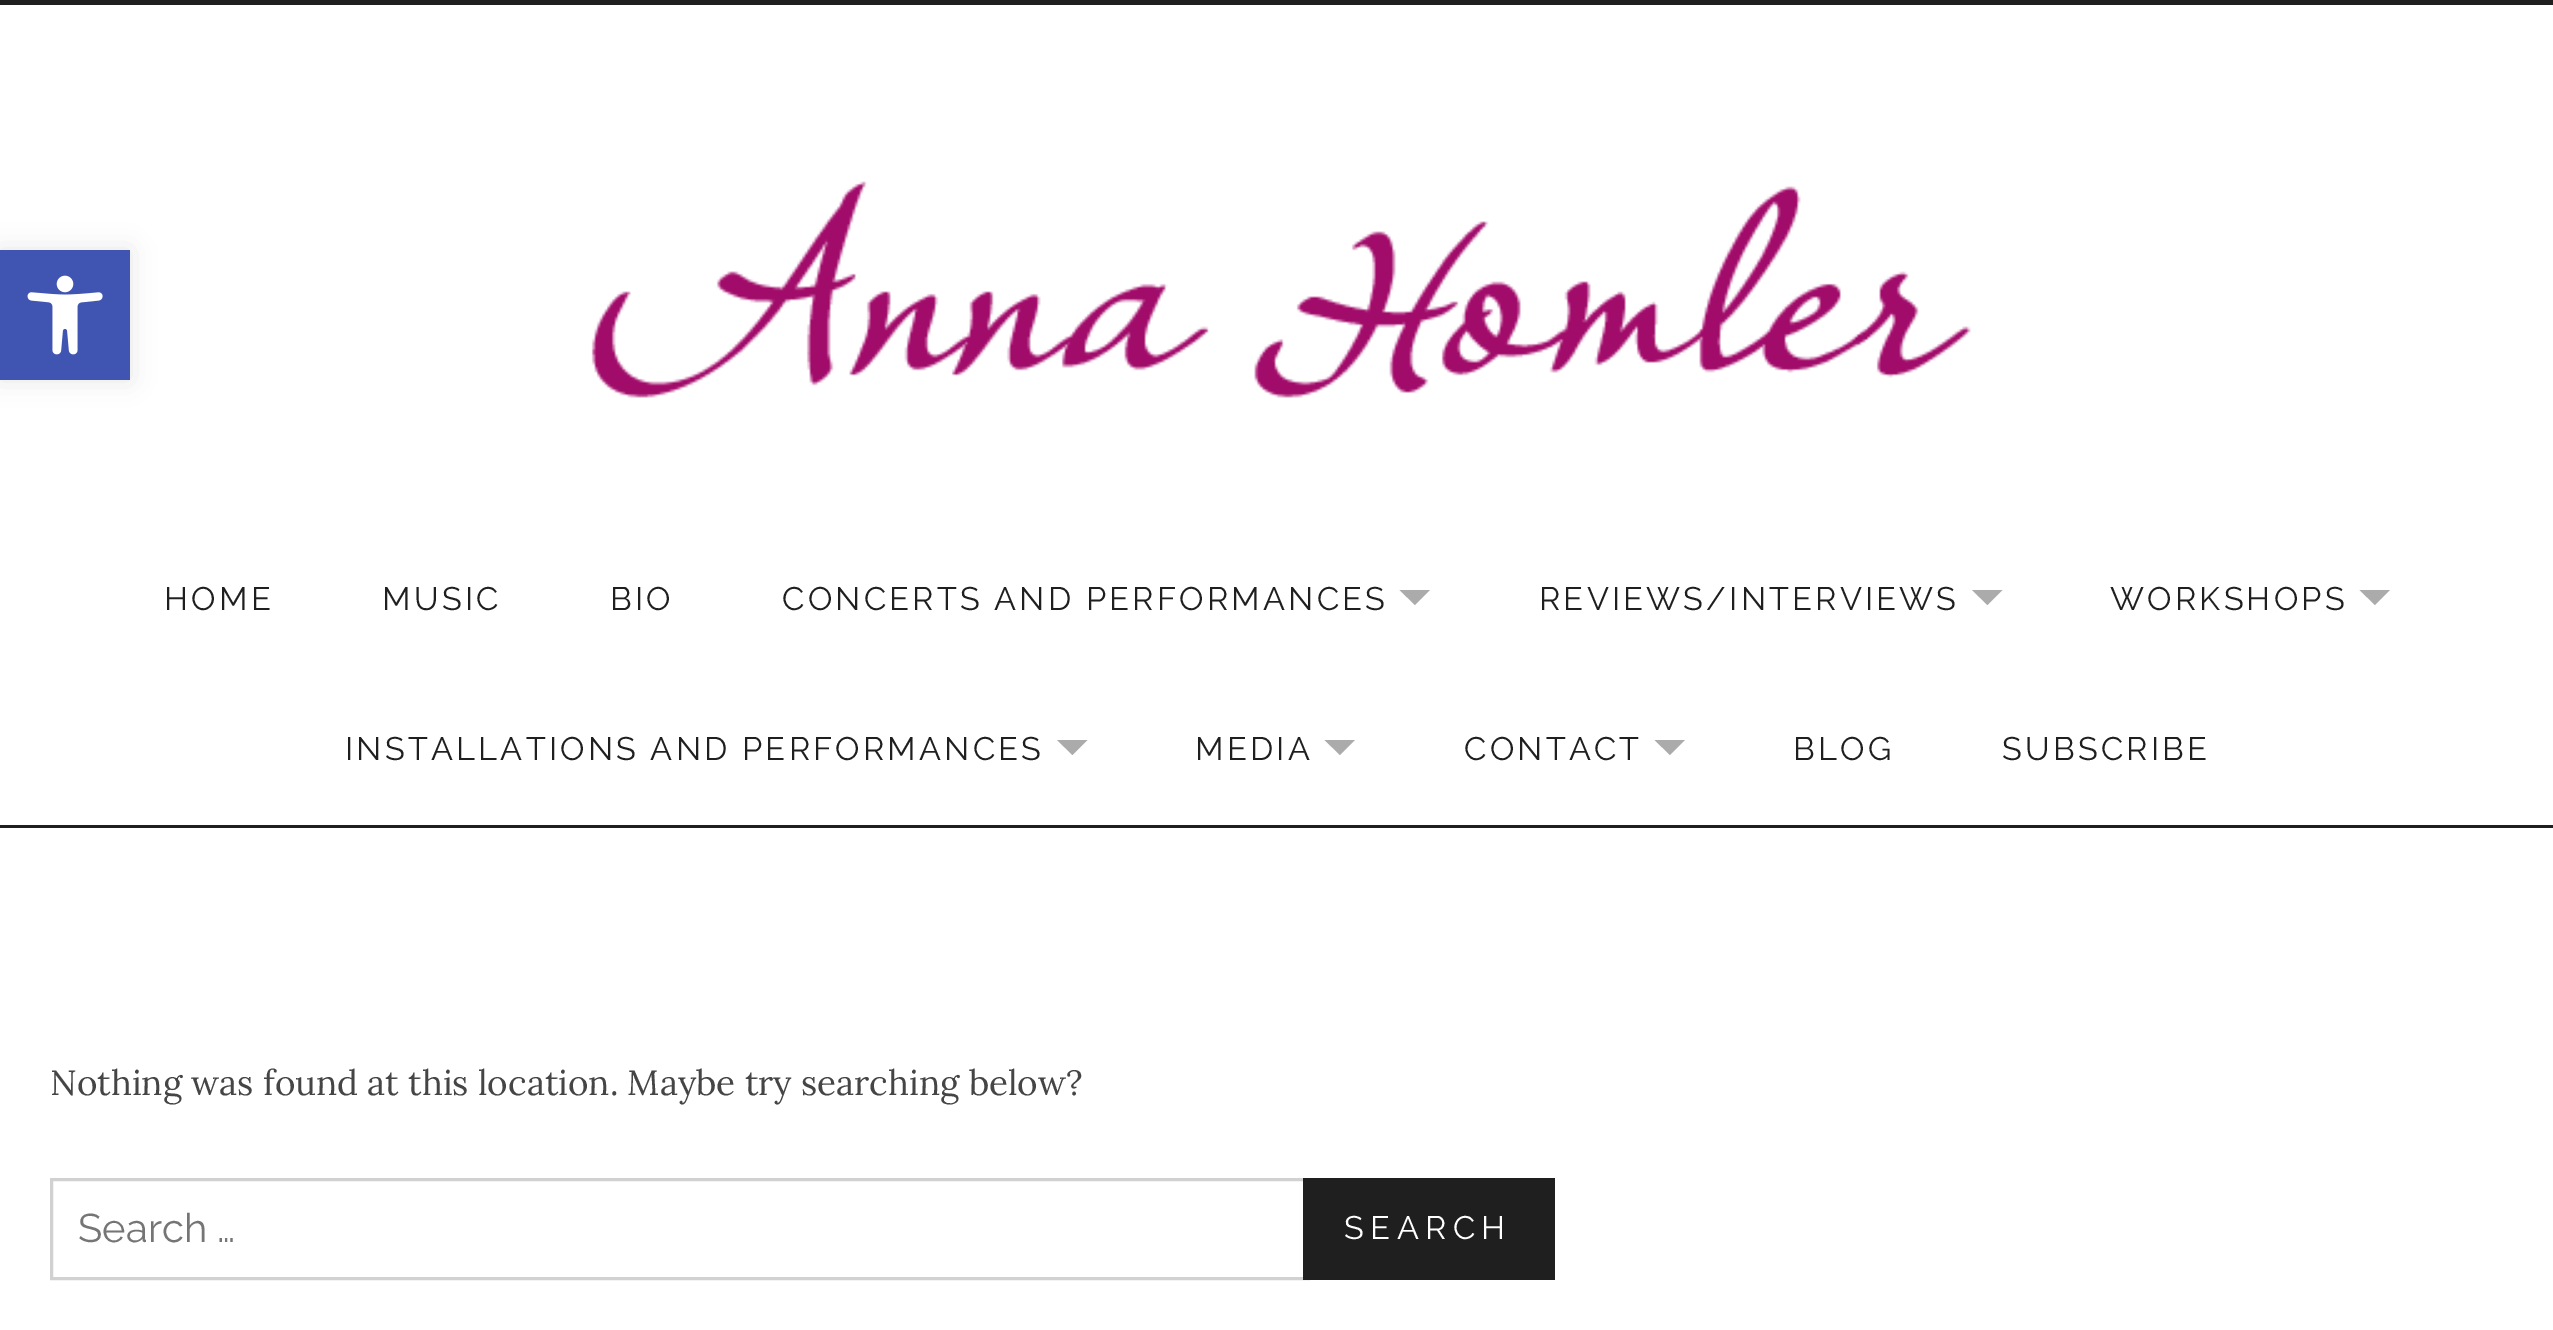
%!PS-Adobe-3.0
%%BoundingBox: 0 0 2553 1330
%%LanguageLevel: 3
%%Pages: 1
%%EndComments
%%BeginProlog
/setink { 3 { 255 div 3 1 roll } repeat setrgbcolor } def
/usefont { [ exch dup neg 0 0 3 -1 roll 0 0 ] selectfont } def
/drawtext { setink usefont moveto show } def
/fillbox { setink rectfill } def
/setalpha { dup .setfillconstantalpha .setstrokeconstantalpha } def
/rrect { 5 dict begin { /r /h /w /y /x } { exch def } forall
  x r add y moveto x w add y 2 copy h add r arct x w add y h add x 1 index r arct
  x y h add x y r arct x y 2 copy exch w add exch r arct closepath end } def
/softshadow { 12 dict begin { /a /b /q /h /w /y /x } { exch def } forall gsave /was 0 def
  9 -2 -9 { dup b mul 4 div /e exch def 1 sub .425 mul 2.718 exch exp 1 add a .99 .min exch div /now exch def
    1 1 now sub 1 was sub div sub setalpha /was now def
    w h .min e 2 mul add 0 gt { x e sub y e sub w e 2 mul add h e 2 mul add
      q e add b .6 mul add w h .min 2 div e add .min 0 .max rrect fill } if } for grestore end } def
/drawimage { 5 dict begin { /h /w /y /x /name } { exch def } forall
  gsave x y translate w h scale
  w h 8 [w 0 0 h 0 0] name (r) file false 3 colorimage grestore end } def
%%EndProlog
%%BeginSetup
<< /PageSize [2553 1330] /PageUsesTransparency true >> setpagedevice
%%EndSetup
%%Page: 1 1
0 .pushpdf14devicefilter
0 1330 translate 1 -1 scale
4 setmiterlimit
0 0 2553 1330 255 255 255 fillbox
0 0 0 setink
0 250 130 130 0 12.5 0.1 softshadow
0 250 130 130 64 84 178 fillbox
(assets/img1.rgb) 27 275 76 80 drawimage
0 0 2553 5 31 31 31 fillbox
0 825 2553 3 31 31 31 fillbox
(assets/img2.rgb) 591 181 1380 217 drawimage
/Raleway-Regular 32.5 usefont
164 610 moveto 3.25 0 (HOME) ashow
382 610 moveto 3.25 0 (MUSIC) ashow
610 610 moveto 3.25 0 (BIO) ashow
782 610 moveto 3.25 0 (CONCERTS AND PERFORMANCES) ashow
171 171 171 setink
1399.5 590 moveto 1430 590 lineto 1415 605 lineto closepath fill
31 31 31 setink
1539 610 moveto 3.25 0 (REVIEWS/INTERVIEWS) ashow
171 171 171 setink
1972 590 moveto 2002.5 590 lineto 1987.5 605 lineto closepath fill
31 31 31 setink
2110 610 moveto 3.25 0 (WORKSHOPS) ashow
171 171 171 setink
2359.5 590 moveto 2390 590 lineto 2375 605 lineto closepath fill
31 31 31 setink
345 760 moveto 3.25 0 (INSTALLATIONS AND PERFORMANCES) ashow
171 171 171 setink
1057 740 moveto 1087.5 740 lineto 1072.5 755 lineto closepath fill
31 31 31 setink
1195 760 moveto 3.25 0 (MEDIA) ashow
171 171 171 setink
1324.5 740 moveto 1355 740 lineto 1340 755 lineto closepath fill
31 31 31 setink
1464 760 moveto 3.25 0 (CONTACT) ashow
171 171 171 setink
1654.5 740 moveto 1685 740 lineto 1670 755 lineto closepath fill
31 31 31 setink
1793 760 moveto 3.25 0 (BLOG) ashow
2002 760 moveto 3.25 0 (SUBSCRIBE) ashow
(Nothing was found at this location. Maybe try searching below?) 50 1095 /Lora-Regular 35 69 69 69 drawtext
209 209 209 setink
3 setlinewidth
51.5 1179.5 1257 99 rectstroke
(Search …) 78 1242 /Raleway-Regular 40 117 117 117 drawtext
1303 1178 252 102 31 31 31 fillbox
/Raleway-Regular 32.5 usefont
255 255 255 setink
1344 1239 moveto 6.5 0 (SEARCH) ashow
.poppdf14devicefilter showpage
%%EOF
